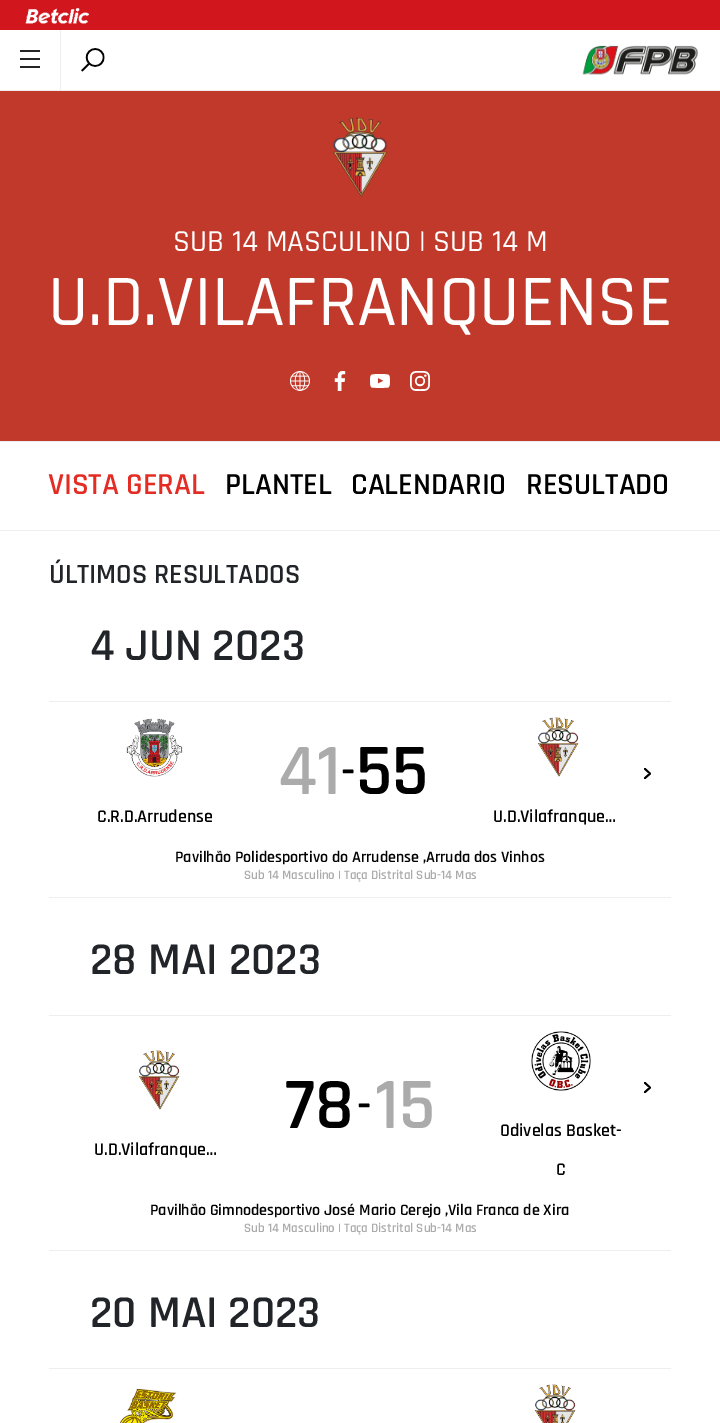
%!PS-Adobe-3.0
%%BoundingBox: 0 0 720 1423
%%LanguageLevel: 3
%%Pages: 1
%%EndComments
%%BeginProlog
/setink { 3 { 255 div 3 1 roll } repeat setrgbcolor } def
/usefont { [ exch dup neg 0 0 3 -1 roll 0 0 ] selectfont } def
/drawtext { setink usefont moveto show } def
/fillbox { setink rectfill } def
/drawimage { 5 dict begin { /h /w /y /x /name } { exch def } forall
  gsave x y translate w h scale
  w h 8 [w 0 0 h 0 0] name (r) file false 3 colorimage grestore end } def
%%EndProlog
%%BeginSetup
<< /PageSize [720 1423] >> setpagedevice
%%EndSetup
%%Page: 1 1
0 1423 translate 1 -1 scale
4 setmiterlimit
0 0 720 1423 255 255 255 fillbox
0 90 720 1 238 238 238 fillbox
0 0 720 30 210 22 30 fillbox
(assets/img1.rgb) 25 8 64 16 drawimage
60 30 1 60 238 238 238 fillbox
(assets/img2.rgb) 20 50 20 18 drawimage
(assets/img3.rgb) 81 48 24 24 drawimage
(assets/img4.rgb) 582 45 116 30 drawimage
0 91 720 350 192 57 43 fillbox
(assets/img5.rgb) 333 117 55 80 drawimage
(SUB 14 MASCULINO | SUB 14 M) 173 251 /Rajdhani-Medium 30.75 255 255 255 drawtext
(U.D.VILAFRANQUENSE) 48 325 /Rajdhani-Medium 73 255 255 255 drawtext
(assets/img6.rgb) 290 371 20 20 drawimage
(assets/img7.rgb) 334 371 12 20 drawimage
(assets/img8.rgb) 370 374 20 14 drawimage
(assets/img9.rgb) 410 371 20 20 drawimage
0 441 720 1 238 238 238 fillbox
0 530 720 1 238 238 238 fillbox
(VISTA GERAL) 48 494 /Rajdhani-SemiBold 30.75 227 44 35 drawtext
(PLANTEL) 225 494 /Rajdhani-SemiBold 30.75 0 0 0 drawtext
(CALENDARIO) 351 494 /Rajdhani-SemiBold 30.75 0 0 0 drawtext
(RESULTADO) 526 494 /Rajdhani-SemiBold 30.75 0 0 0 drawtext
(ÚLTIMOS RESULTADOS) 49 583 /Rajdhani-SemiBold 28 33 37 41 drawtext
(4 JUN 2023) 90 660 /Rajdhani-SemiBold 46 33 37 41 drawtext
49 701 622 1 238 238 238 fillbox
49 897 622 1 238 238 238 fillbox
(41) 278 794 /Rajdhani-SemiBold 73 172 171 171 drawtext
(-) 341 786 /Rajdhani-SemiBold 46 0 0 0 drawtext
(55) 356 794 /Rajdhani-SemiBold 73 0 0 0 drawtext
(assets/img10.rgb) 126 718 57 59 drawimage
(C.R.D.Arrudense) 97 822 /Rajdhani-SemiBold 18 0 0 0 drawtext
(assets/img11.rgb) 537 717 42 60 drawimage
(U.D.Vilafranque…) 493 822 /Rajdhani-SemiBold 18 0 0 0 drawtext
(Pavilhão Polidesportivo do Arrudense ,Arruda dos Vinhos) 175 862 /Rajdhani-SemiBold 16 0 0 0 drawtext
(Sub 14 Masculino | Taça Distrital Sub-14 Mas) 244 879 /Rajdhani-SemiBold 13 172 171 171 drawtext
(assets/img12.rgb) 644 768 7 11 drawimage
(28 MAI 2023) 90 974 /Rajdhani-SemiBold 46 33 37 41 drawtext
49 1015 622 1 238 238 238 fillbox
49 1250 622 1 238 238 238 fillbox
(78) 285 1128 /Rajdhani-SemiBold 73 0 0 0 drawtext
(-) 357 1120 /Rajdhani-SemiBold 46 0 0 0 drawtext
(15) 375 1128 /Rajdhani-SemiBold 73 172 171 171 drawtext
(assets/img13.rgb) 138 1050 42 60 drawimage
(U.D.Vilafranque…) 94 1155 /Rajdhani-SemiBold 18 0 0 0 drawtext
(assets/img14.rgb) 531 1031 60 60 drawimage
(Odivelas Basket-) 500 1136 /Rajdhani-SemiBold 18 0 0 0 drawtext
(C) 556 1175 /Rajdhani-SemiBold 18 0 0 0 drawtext
(Pavilhão Gimnodesportivo José Mario Cerejo ,Vila Franca de Xira) 150 1215 /Rajdhani-SemiBold 16 0 0 0 drawtext
(Sub 14 Masculino | Taça Distrital Sub-14 Mas) 244 1232 /Rajdhani-SemiBold 13 172 171 171 drawtext
(assets/img12.rgb) 644 1082 7 11 drawimage
(20 MAI 2023) 90 1327 /Rajdhani-SemiBold 46 33 37 41 drawtext
49 1368 622 1 238 238 238 fillbox
(assets/img15.rgb) 119 1388 58 35 drawimage
(assets/img16.rgb) 534 1384 42 39 drawimage
showpage
%%EOF
